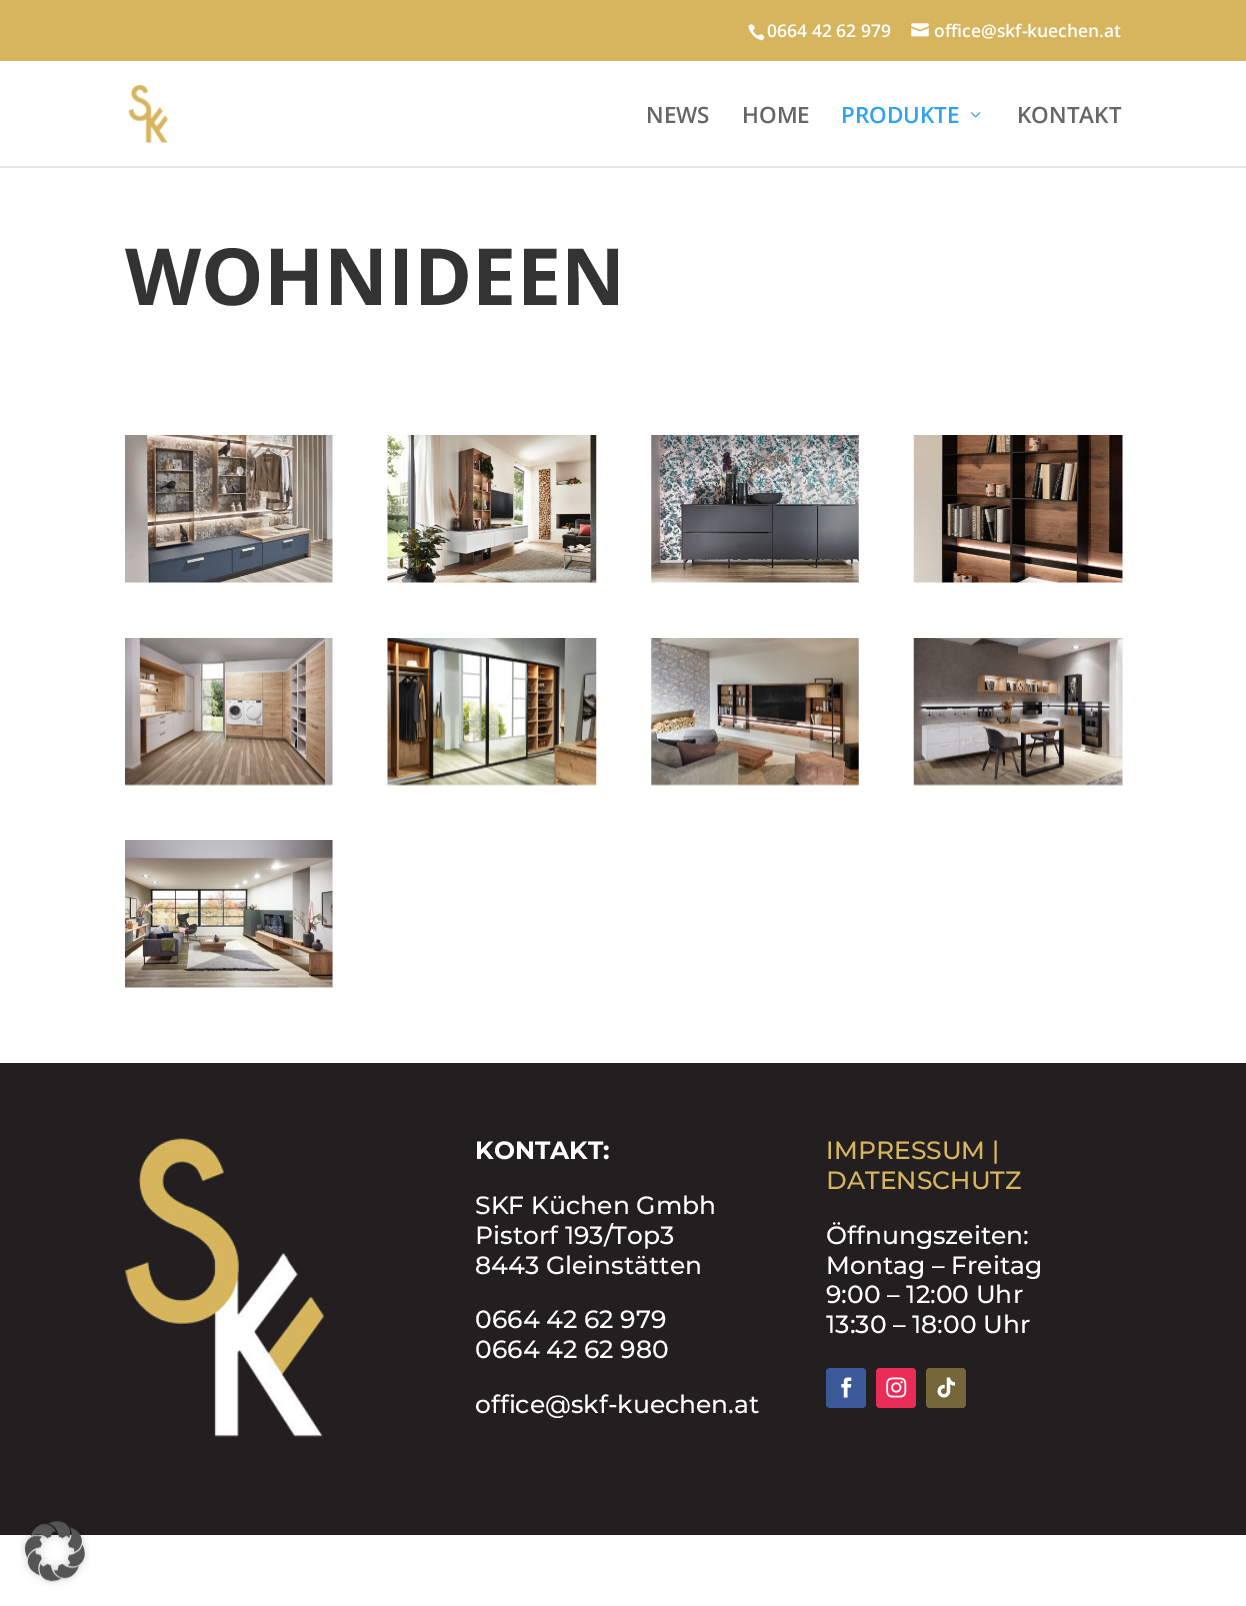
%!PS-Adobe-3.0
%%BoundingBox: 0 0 1246 1606
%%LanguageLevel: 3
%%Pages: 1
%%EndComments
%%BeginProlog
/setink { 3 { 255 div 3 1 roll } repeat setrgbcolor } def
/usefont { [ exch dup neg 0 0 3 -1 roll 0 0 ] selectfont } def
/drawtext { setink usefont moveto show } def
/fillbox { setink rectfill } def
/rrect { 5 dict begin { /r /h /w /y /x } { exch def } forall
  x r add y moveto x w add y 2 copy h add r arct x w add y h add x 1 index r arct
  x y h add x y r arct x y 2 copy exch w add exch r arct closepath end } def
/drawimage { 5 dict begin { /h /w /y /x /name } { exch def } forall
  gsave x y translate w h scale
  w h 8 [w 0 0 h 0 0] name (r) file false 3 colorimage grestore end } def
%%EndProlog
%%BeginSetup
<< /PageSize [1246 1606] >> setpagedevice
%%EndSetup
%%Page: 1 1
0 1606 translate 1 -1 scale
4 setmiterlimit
0 0 1246 1606 255 255 255 fillbox
0 0 1246 61 215 181 94 fillbox
(assets/img1.rgb) 748 24 17 17 drawimage
(0664 42 62 979) 767 37 /OpenSans-SemiBold 17.5 255 255 255 drawtext
(assets/img2.rgb) 911 23 18 14 drawimage
(office@skf-kuechen.at) 934 37 /OpenSans-SemiBold 17.5 255 255 255 drawtext
0 166 1246 2 230 230 230 fillbox
(assets/img3.rgb) 128 85 40 58 drawimage
(NEWS) 646 123 /OpenSans-SemiBold 22.5 102 102 102 drawtext
(HOME) 742 123 /OpenSans-SemiBold 22.5 102 102 102 drawtext
(PRODUKTE) 841 123 /OpenSans-SemiBold 22.5 46 163 242 drawtext
(assets/img4.rgb) 971 112 10 6 drawimage
(KONTAKT) 1017 123 /OpenSans-SemiBold 22.5 102 102 102 drawtext
(WOHNIDEEN) 125 305 /OpenSans-Bold 78.75 51 51 51 drawtext
(assets/img5.rgb) 125 435 208 148 drawimage
(assets/img6.rgb) 387 435 210 148 drawimage
(assets/img7.rgb) 651 435 208 148 drawimage
(assets/img8.rgb) 913 435 210 148 drawimage
(assets/img9.rgb) 125 638 208 148 drawimage
(assets/img10.rgb) 387 638 210 148 drawimage
(assets/img11.rgb) 651 638 208 148 drawimage
(assets/img12.rgb) 913 638 210 148 drawimage
(assets/img13.rgb) 125 840 208 148 drawimage
0 1063 1246 472 35 31 32 fillbox
(assets/img14.rgb) 124 1137 200 300 drawimage
(KONTAKT:) 475 1159 /Montserrat-Thin 25 255 255 255 drawtext
(SKF Küchen Gmbh) 475 1214 /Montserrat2-Thin 25 255 255 255 drawtext
(Pistorf 193/Top3) 475 1244 /Montserrat2-Thin 25 255 255 255 drawtext
(8443 Gleinstätten) 475 1274 /Montserrat2-Thin 25 255 255 255 drawtext
(0664 42 62 979) 475 1328 /Montserrat2-Thin 25 255 255 255 drawtext
(0664 42 62 980) 475 1358 /Montserrat2-Thin 25 255 255 255 drawtext
(office@skf-kuechen.at) 475 1413 /Montserrat2-Thin 25 255 255 255 drawtext
(IMPRESSUM |) 826 1159 /Montserrat2-Thin 25 215 181 94 drawtext
(DATENSCHUTZ) 826 1189 /Montserrat2-Thin 25 215 181 94 drawtext
(Öffnungszeiten:) 826 1244 /Montserrat2-Thin 25 255 255 255 drawtext
(Montag – Freitag) 826 1274 /Montserrat2-Thin 25 255 255 255 drawtext
(9:00 – 12:00 Uhr) 826 1303 /Montserrat2-Thin 25 255 255 255 drawtext
(13:30 – 18:00 Uhr) 826 1333 /Montserrat2-Thin 25 255 255 255 drawtext
59 89 152 setink
826 1368 40 40 4 rrect fill
(assets/img15.rgb) 841 1377 11 21 drawimage
234 44 89 setink
876 1368 40 40 4 rrect fill
(assets/img16.rgb) 886 1377 21 21 drawimage
118 103 58 setink
926 1368 40 40 4 rrect fill
(assets/img17.rgb) 937 1377 18 21 drawimage
(assets/img18.rgb) 20 1521 70 65 drawimage
showpage
%%EOF
